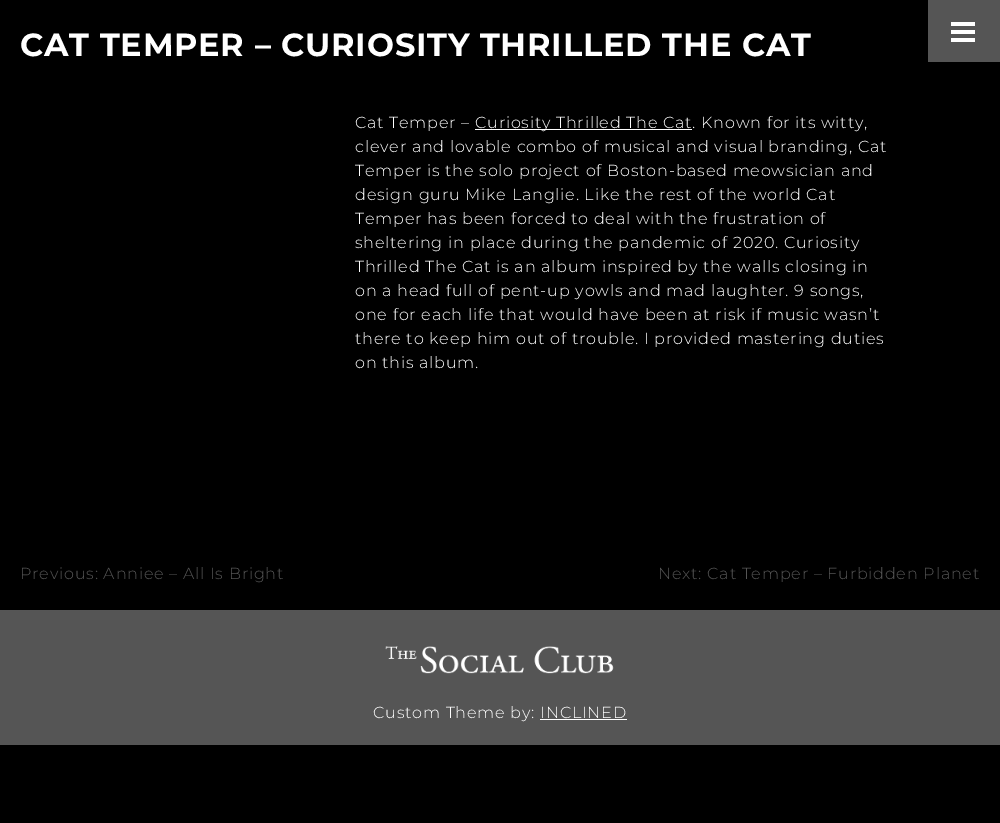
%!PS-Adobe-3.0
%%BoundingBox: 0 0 1000 823
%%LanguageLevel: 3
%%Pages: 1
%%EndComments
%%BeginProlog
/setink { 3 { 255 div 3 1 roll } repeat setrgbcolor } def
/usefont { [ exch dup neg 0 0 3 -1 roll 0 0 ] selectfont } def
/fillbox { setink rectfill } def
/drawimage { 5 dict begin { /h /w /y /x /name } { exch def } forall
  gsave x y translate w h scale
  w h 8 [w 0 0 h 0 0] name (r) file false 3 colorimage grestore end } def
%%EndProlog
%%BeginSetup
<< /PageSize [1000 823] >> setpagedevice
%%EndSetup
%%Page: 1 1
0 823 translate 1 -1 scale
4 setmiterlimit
0 0 1000 823 0 0 0 fillbox
928 0 72 62 85 85 85 fillbox
951 22 24 4 255 255 255 fillbox
951 30 24 4 255 255 255 fillbox
951 38 24 4 255 255 255 fillbox
/Montserrat-Bold 32 usefont
20 56 moveto 0.8 0 (CAT TEMPER – CURIOSITY THRILLED THE CAT) ashow
/Montserrat-Light 16 usefont
355 128 moveto 0.8 0 (Cat Temper –) ashow
475 129 217 1 255 255 255 fillbox
475 128 moveto 0.8 0 (Curiosity Thrilled The Cat. Known for its witty,) ashow
355 152 moveto 0.8 0 (clever and lovable combo of musical and visual branding, Cat) ashow
355 176 moveto 0.8 0 (Temper is the solo project of Boston-based meowsician and) ashow
355 200 moveto 0.8 0 (design guru Mike Langlie. Like the rest of the world Cat) ashow
355 224 moveto 0.8 0 (Temper has been forced to deal with the frustration of) ashow
355 248 moveto 0.8 0 (sheltering in place during the pandemic of 2020. Curiosity) ashow
355 272 moveto 0.8 0 (Thrilled The Cat is an album inspired by the walls closing in) ashow
355 296 moveto 0.8 0 (on a head full of pent-up yowls and mad laughter. 9 songs,) ashow
355 320 moveto 0.8 0 (one for each life that would have been at risk if music wasn’t) ashow
355 344 moveto 0.8 0 (there to keep him out of trouble. I provided mastering duties) ashow
355 368 moveto 0.8 0 (on this album.) ashow
85 85 85 setink
20 579 moveto 0.8 0 (Previous: Anniee – All Is Bright) ashow
658 579 moveto 0.8 0 (Next: Cat Temper – Furbidden Planet) ashow
0 610 1000 135 85 85 85 fillbox
(assets/img1.rgb) 385 646 229 28 drawimage
255 255 255 setink
373 718 moveto 0.8 0 (Custom Theme by: INCLINED) ashow
540 719 87 1 255 255 255 fillbox
showpage
%%EOF
